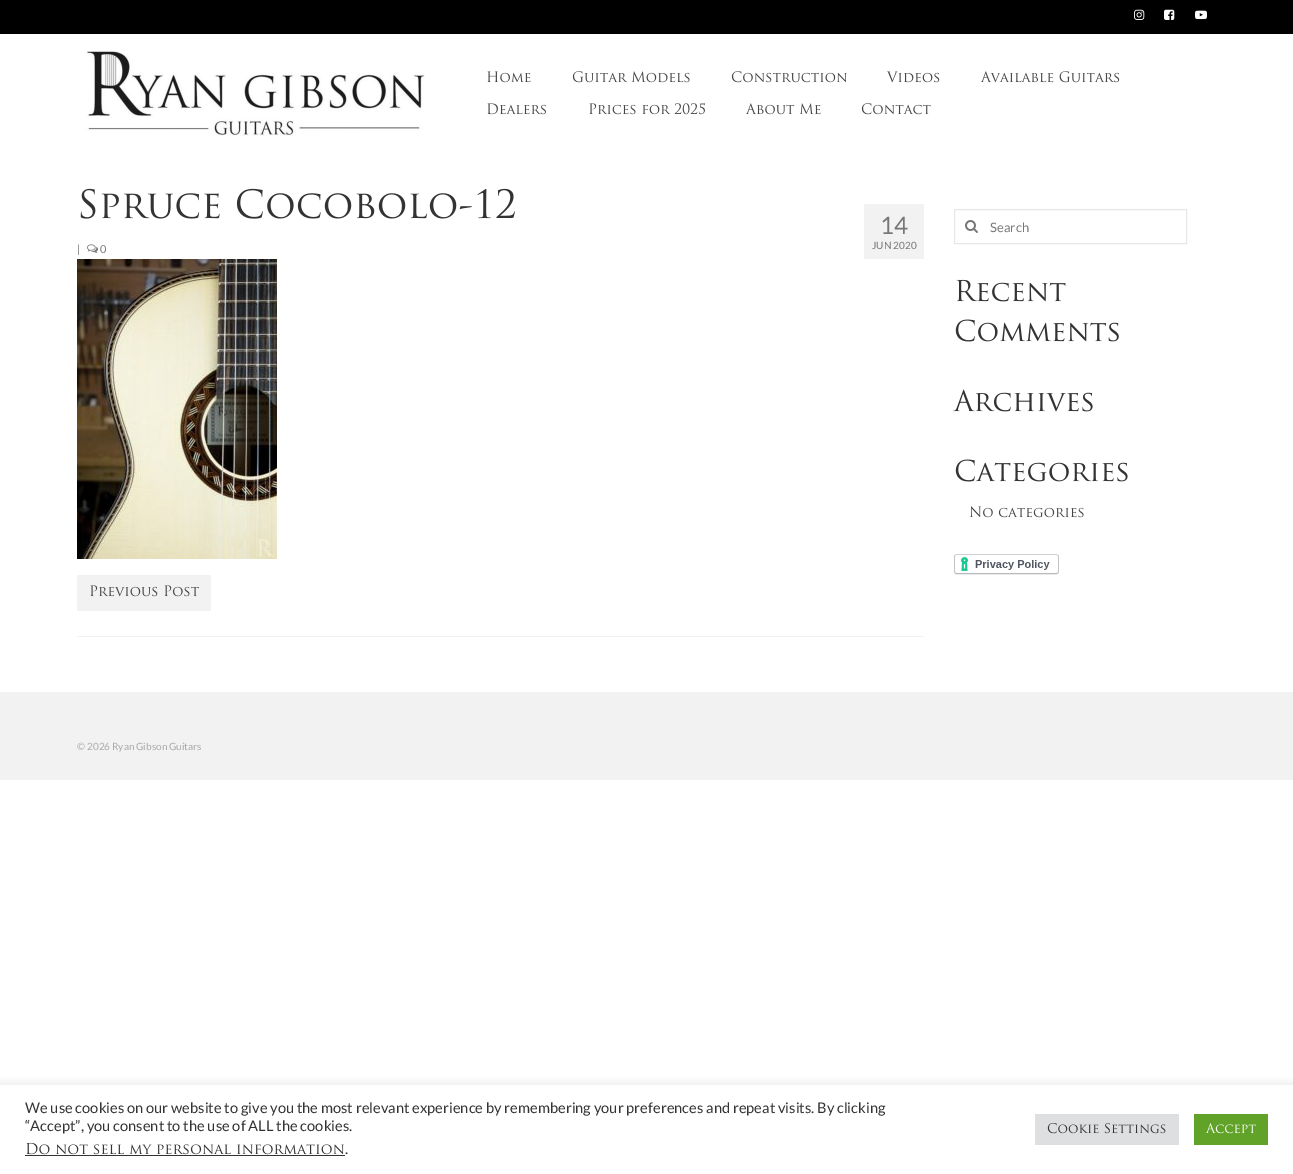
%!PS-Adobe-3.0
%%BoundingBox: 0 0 1293 1174
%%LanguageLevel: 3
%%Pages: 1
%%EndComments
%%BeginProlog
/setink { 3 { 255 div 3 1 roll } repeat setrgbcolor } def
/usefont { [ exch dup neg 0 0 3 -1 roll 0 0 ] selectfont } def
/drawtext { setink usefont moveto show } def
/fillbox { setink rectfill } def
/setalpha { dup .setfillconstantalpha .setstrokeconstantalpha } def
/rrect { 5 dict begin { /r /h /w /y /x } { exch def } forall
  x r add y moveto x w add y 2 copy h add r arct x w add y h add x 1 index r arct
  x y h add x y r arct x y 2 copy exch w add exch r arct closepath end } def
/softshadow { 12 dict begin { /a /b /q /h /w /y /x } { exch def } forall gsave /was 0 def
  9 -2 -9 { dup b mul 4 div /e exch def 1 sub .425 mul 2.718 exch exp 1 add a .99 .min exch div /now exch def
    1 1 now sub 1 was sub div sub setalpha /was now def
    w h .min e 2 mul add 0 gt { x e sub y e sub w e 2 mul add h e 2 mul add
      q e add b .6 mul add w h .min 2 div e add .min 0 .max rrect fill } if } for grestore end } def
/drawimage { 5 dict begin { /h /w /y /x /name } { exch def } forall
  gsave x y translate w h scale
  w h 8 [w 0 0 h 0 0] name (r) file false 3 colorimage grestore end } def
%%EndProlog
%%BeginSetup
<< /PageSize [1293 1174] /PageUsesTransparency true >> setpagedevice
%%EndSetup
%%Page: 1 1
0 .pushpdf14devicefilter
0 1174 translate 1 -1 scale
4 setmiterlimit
0 0 1293 1174 255 255 255 fillbox
0 0 1293 34 0 0 0 fillbox
(assets/img1.rgb) 1134 9 11 11 drawimage
(assets/img2.rgb) 1164 9 11 11 drawimage
(assets/img3.rgb) 1195 10 12 10 drawimage
(assets/img4.rgb) 85 51 340 85 drawimage
(assets/img5.rgb) 487 71 44 12 drawimage
(assets/img6.rgb) 572 71 118 12 drawimage
(assets/img7.rgb) 731 71 116 12 drawimage
(assets/img8.rgb) 886 71 54 12 drawimage
(assets/img9.rgb) 980 71 140 12 drawimage
(assets/img10.rgb) 487 103 59 12 drawimage
(assets/img11.rgb) 589 103 116 12 drawimage
(assets/img12.rgb) 745 103 76 12 drawimage
(assets/img13.rgb) 861 103 70 12 drawimage
(assets/img14.rgb) 80 188 435 31 drawimage
(|) 77 253 /Lato-Regular 11 119 119 119 drawtext
(assets/img15.rgb) 87 244 11 9 drawimage
(0) 100 253 /Lato-Regular 11 119 119 119 drawtext
864 204 60 55 242 242 242 fillbox
(14) 880 234 /Lato-Regular 24 119 119 119 drawtext
(JUN 2020) 872 249 /Lato-Regular 10 119 119 119 drawtext
(assets/img16.rgb) 77 259 200 300 drawimage
77 636 847 1 242 242 242 fillbox
77 575 134 36 242 242 242 fillbox
(assets/img17.rgb) 90 585 109 12 drawimage
231 231 231 setink
954.5 209.5 232 34 rectstroke
(assets/img18.rgb) 965 220 13 13 drawimage
(Search) 990 232 /Lato-Regular 13 119 119 119 drawtext
(assets/img19.rgb) 956 279 110 23 drawimage
(assets/img20.rgb) 955 319 164 23 drawimage
(assets/img21.rgb) 953 389 140 23 drawimage
(assets/img22.rgb) 955 459 173 23 drawimage
(assets/img23.rgb) 970 506 114 12 drawimage
(assets/img24.rgb) 954 554 105 21 drawimage
0 692 1293 88 242 242 242 fillbox
(© 2026 Ryan Gibson Guitars) 77 750 /Lato-Regular 10 170 170 170 drawtext
gsave
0 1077 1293 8 rectclip
172 171 171 setink
0 1084 1293 89 0 5 0.3 softshadow
grestore
(We use cookies on our website to give you the most relevant experience by remembering your preferences and repeat visits. By clicking) 25 1113 /Lato-Regular 14.67 51 51 51 drawtext
(“Accept”, you consent to the use of ALL the cookies.) 25 1131 /Lato-Regular 14.67 51 51 51 drawtext
(assets/img25.rgb) 26 1142 318 13 drawimage
(.) 345 1154 /Lato-Regular 14.67 51 51 51 drawtext
25 1155 320 1 51 51 51 fillbox
1035 1114 144 31 222 223 224 fillbox
(assets/img26.rgb) 1047 1123 119 11 drawimage
1194 1114 74 31 97 162 41 fillbox
(assets/img27.rgb) 1205 1123 51 11 drawimage
.poppdf14devicefilter showpage
%%EOF
